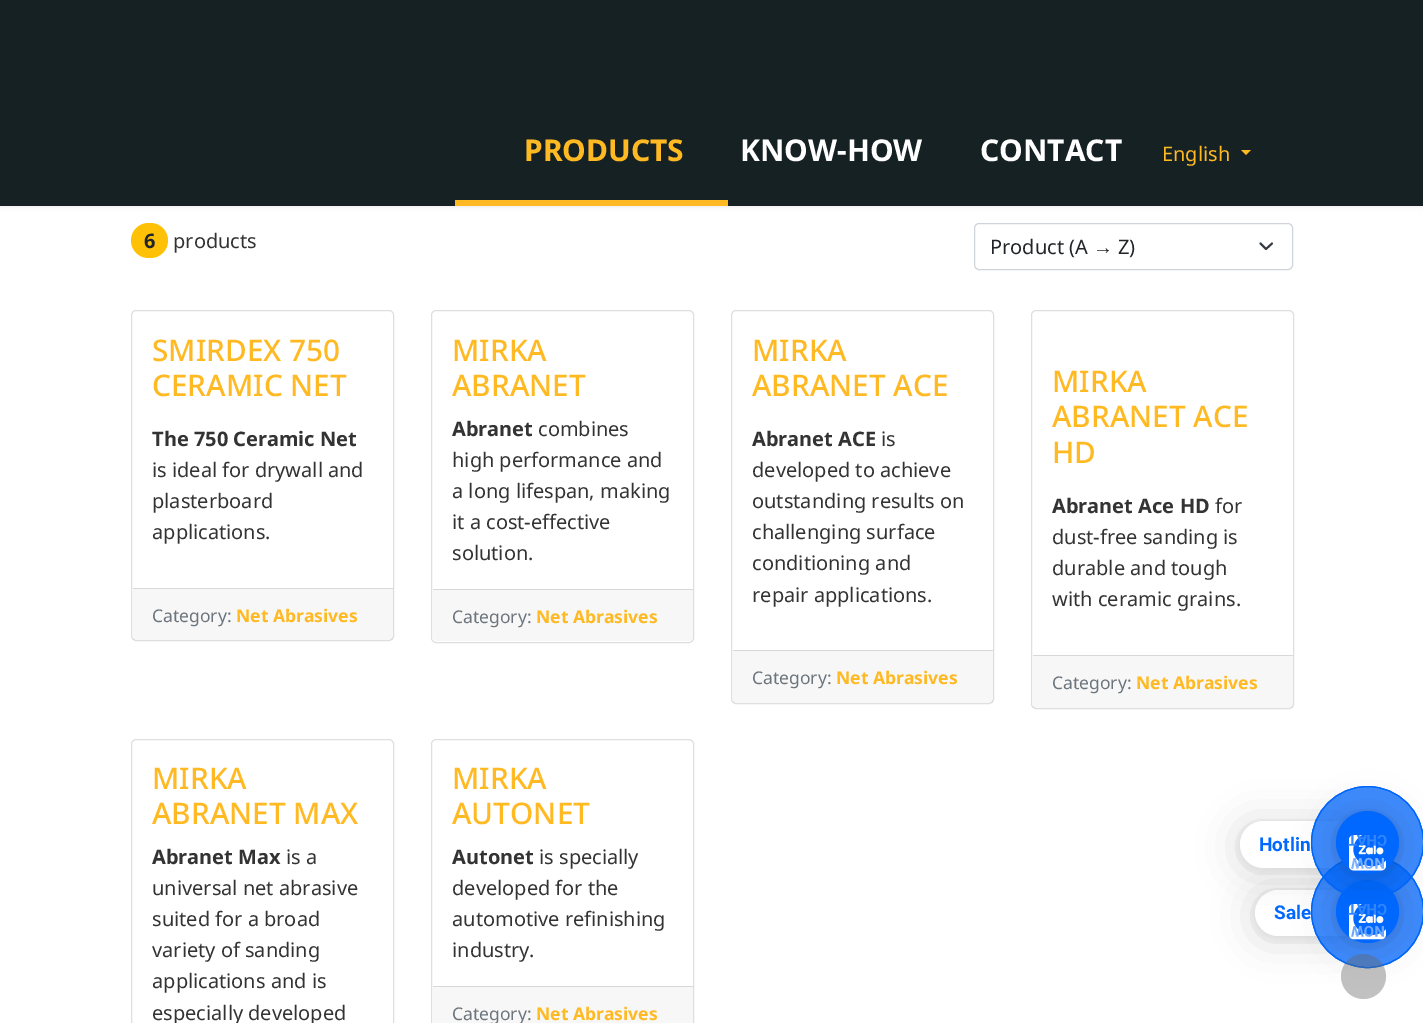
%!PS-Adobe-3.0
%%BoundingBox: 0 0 1423 1023
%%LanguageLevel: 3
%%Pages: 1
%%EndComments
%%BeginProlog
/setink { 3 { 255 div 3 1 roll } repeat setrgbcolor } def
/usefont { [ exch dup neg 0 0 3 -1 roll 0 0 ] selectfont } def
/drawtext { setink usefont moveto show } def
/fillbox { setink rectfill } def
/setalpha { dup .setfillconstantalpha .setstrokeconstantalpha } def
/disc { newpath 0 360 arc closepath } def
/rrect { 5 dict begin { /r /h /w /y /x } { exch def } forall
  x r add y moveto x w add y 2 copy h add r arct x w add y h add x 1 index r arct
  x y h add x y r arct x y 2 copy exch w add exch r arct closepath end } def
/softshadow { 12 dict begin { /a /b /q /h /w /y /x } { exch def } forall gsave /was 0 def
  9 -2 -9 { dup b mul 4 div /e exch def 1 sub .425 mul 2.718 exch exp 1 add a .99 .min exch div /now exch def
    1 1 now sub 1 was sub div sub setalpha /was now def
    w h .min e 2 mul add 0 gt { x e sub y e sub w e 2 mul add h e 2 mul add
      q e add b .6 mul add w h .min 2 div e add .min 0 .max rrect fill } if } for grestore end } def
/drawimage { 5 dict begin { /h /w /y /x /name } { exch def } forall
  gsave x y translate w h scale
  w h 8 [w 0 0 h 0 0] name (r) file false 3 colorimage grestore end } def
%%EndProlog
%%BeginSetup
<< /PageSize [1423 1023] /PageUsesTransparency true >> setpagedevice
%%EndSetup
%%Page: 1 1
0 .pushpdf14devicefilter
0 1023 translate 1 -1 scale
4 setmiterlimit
0 0 1423 1023 255 255 255 fillbox
0 0 0 setink
0 0 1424 206 0 2.5 0.1 softshadow
0 0 1423 206 22 33 36 fillbox
455 200 273 6 255 185 35 fillbox
(PRODUCTS) 524 161 /NotoSans-Bold 30 255 185 35 drawtext
(KNOW-HOW) 740 161 /NotoSans-Bold 30 255 255 255 drawtext
(CONTACT) 980 161 /NotoSans-Bold 30 255 255 255 drawtext
(English) 1162 161 /NotoSans-Regular 20 255 185 35 drawtext
1241 150 moveto 1251 150 lineto 1246 155 lineto closepath fill
255 193 7 setink
131 223 37 35 17.5 rrect fill
(6) 144 248 /NotoSans-Bold 20 33 37 41 drawtext
(products) 173 248 /NotoSans-Regular 20 51 51 51 drawtext
52 58 64 setink
1.9 setlinewidth
1 setlinecap
1 setlinejoin
1260.5 243.5 moveto 1266 249 lineto 1272 243.5 lineto stroke
206 212 218 setink
1 setlinewidth
0 setlinecap
0 setlinejoin
974.5 223.5 318 46 4.5 rrect stroke
(Product \(A) 990 254 /NotoSans-Regular 20 33 37 41 drawtext
(→) 1093 254 /LiberationSans-Regular 20 33 37 41 drawtext
(Z\)) 1118 254 /NotoSans-Regular 20 33 37 41 drawtext
223 223 223 setink
131.5 310.5 262 330 4.5 rrect stroke
(SMIRDEX 750) 152 361 /NotoSans-Medium 29.75 255 185 35 drawtext
(CERAMIC NET) 152 396 /NotoSans-Medium 29.75 255 185 35 drawtext
(The 750 Ceramic Net) 152 446 /NotoSans-Bold 20 51 51 51 drawtext
(is ideal for drywall and) 152 477 /NotoSans-Regular 20 51 51 51 drawtext
(plasterboard) 152 508 /NotoSans-Regular 20 51 51 51 drawtext
(applications.) 152 539 /NotoSans-Regular 20 51 51 51 drawtext
0.03 setalpha
133 589 260 51 0 0 0 fillbox
1 setalpha
133 588 260 1 216 216 216 fillbox
(Category:) 152 622 /NotoSans-Regular 17.5 108 117 125 drawtext
(Net Abrasives) 236 622 /NotoSans-Bold 17.5 255 185 35 drawtext
223 223 223 setink
431.5 310.5 262 332 4.5 rrect stroke
(MIRKA) 452 361 /NotoSans-Medium 29.75 255 185 35 drawtext
(ABRANET) 452 396 /NotoSans-Medium 29.75 255 185 35 drawtext
(Abranet) 452 436 /NotoSans-Bold 20 51 51 51 drawtext
(combines) 538 436 /NotoSans-Regular 20 51 51 51 drawtext
(high performance and) 452 467 /NotoSans-Regular 20 51 51 51 drawtext
(a long lifespan, making) 452 498 /NotoSans-Regular 20 51 51 51 drawtext
(it a cost-effective) 452 529 /NotoSans-Regular 20 51 51 51 drawtext
(solution.) 452 560 /NotoSans-Regular 20 51 51 51 drawtext
247 247 247 setink
433 589 moveto 693 589 lineto 693 637 lineto 693 639 691 641 689 641 curveto 437 641 lineto 435 641 433 639 433 637 curveto closepath fill
433 589 260 1 216 216 216 fillbox
(Category:) 452 623 /NotoSans-Regular 17.5 108 117 125 drawtext
(Net Abrasives) 536 623 /NotoSans-Bold 17.5 255 185 35 drawtext
223 223 223 setink
731.5 310.5 262 393 4.5 rrect stroke
(MIRKA) 752 361 /NotoSans-Medium 29.75 255 185 35 drawtext
(ABRANET ACE) 752 396 /NotoSans-Medium 29.75 255 185 35 drawtext
(Abranet ACE) 752 446 /NotoSans-Bold 20 51 51 51 drawtext
(is) 881 446 /NotoSans-Regular 20 51 51 51 drawtext
(developed to achieve) 752 477 /NotoSans-Regular 20 51 51 51 drawtext
(outstanding results on) 752 508 /NotoSans-Regular 20 51 51 51 drawtext
(challenging surface) 752 539 /NotoSans-Regular 20 51 51 51 drawtext
(conditioning and) 752 570 /NotoSans-Regular 20 51 51 51 drawtext
(repair applications.) 752 602 /NotoSans-Regular 20 51 51 51 drawtext
0.03 setalpha
733 651 260 52 0 0 0 fillbox
1 setalpha
733 650 260 1 216 216 216 fillbox
(Category:) 752 684 /NotoSans-Regular 17.5 108 117 125 drawtext
(Net Abrasives) 836 684 /NotoSans-Bold 17.5 255 185 35 drawtext
223 223 223 setink
1031.5 310.5 262 398 4.5 rrect stroke
(MIRKA) 1052 392 /NotoSans-Medium 29.75 255 185 35 drawtext
(ABRANET ACE) 1052 427 /NotoSans-Medium 29.75 255 185 35 drawtext
(HD) 1052 463 /NotoSans-Medium 29.75 255 185 35 drawtext
(Abranet Ace HD) 1052 513 /NotoSans-Bold 20 51 51 51 drawtext
(for) 1215 513 /NotoSans-Regular 20 51 51 51 drawtext
(dust-free sanding is) 1052 544 /NotoSans-Regular 20 51 51 51 drawtext
(durable and tough) 1052 575 /NotoSans-Regular 20 51 51 51 drawtext
(with ceramic grains.) 1052 606 /NotoSans-Regular 20 51 51 51 drawtext
0.03 setalpha
1033 656 260 52 0 0 0 fillbox
1 setalpha
1033 655 260 1 216 216 216 fillbox
(Category:) 1052 689 /NotoSans-Regular 17.5 108 117 125 drawtext
(Net Abrasives) 1136 689 /NotoSans-Bold 17.5 255 185 35 drawtext
223 223 223 setink
131.5 739.5 262 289 4.5 rrect stroke
(MIRKA) 152 789 /NotoSans-Medium 29.75 255 185 35 drawtext
(ABRANET MAX) 152 824 /NotoSans-Medium 29.75 255 185 35 drawtext
(Abranet Max) 152 864 /NotoSans-Bold 20 51 51 51 drawtext
(is a) 286 864 /NotoSans-Regular 20 51 51 51 drawtext
(universal net abrasive) 152 895 /NotoSans-Regular 20 51 51 51 drawtext
(suited for a broad) 152 926 /NotoSans-Regular 20 51 51 51 drawtext
(variety of sanding) 152 957 /NotoSans-Regular 20 51 51 51 drawtext
(applications and is) 152 988 /NotoSans-Regular 20 51 51 51 drawtext
(especially developed) 152 1020 /NotoSans-Regular 20 51 51 51 drawtext
223 223 223 setink
431.5 739.5 262 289 4.5 rrect stroke
(MIRKA) 452 789 /NotoSans-Medium 29.75 255 185 35 drawtext
(AUTONET) 452 824 /NotoSans-Medium 29.75 255 185 35 drawtext
(Autonet) 452 864 /NotoSans-Bold 20 51 51 51 drawtext
(is specially) 539 864 /NotoSans-Regular 20 51 51 51 drawtext
(developed for the) 452 895 /NotoSans-Regular 20 51 51 51 drawtext
(automotive refinishing) 452 926 /NotoSans-Regular 20 51 51 51 drawtext
(industry.) 452 957 /NotoSans-Regular 20 51 51 51 drawtext
433 987 260 36 247 247 247 fillbox
433 986 260 1 216 216 216 fillbox
(Category:) 452 1020 /NotoSans-Regular 17.5 108 117 125 drawtext
(Net Abrasives) 536 1020 /NotoSans-Bold 17.5 255 185 35 drawtext
0 0 0 setink
1255 893 96 46 23 20 0.16 softshadow
1255 891 96 47 23.5 4 0.06 softshadow
255 255 255 setink
1278 890 moveto 1351 890 lineto 1351 936 lineto 1278 936 lineto 1265.5 936 1255 925.5 1255 913 curveto 1255 900.5 1265.5 890 1278 890 curveto closepath fill
0 0 0 setink
1240 824 111 46 23 20 0.16 softshadow
1240 823 111 46 23 4 0.06 softshadow
255 255 255 setink
1263.5 821 moveto 1351 821 lineto 1351 868 lineto 1263.5 868 lineto 1250.5 868 1240 857.5 1240 844.5 curveto 1240 831.5 1250.5 821 1263.5 821 curveto closepath fill
(Hotlin) 1259 851 /Roboto-Bold 19 0 104 255 drawtext
0.5 setalpha
1367.5 911.5 56 disc fill
1 setalpha
1367.5 911.5 56 disc stroke
0.5 setalpha
1367.5 911.5 56 disc fill
1 setalpha
1367.5 911.5 56 disc stroke
0 0 0 setink
1336 883 63 62 31 20 0.16 softshadow
1336 881 63 63 31.5 4 0.06 softshadow
0 104 255 setink
1367.5 911.5 31.5 disc fill
0.5 setalpha
1367.5 842.5 56 disc fill
1 setalpha
1367.5 842.5 56 disc stroke
0.5 setalpha
1367.5 842.5 56 disc fill
1 setalpha
1367.5 842.5 56 disc stroke
(assets/img2.rgb) 1349 904 37 36 drawimage
0 0 0 setink
1336 814 63 62 31 20 0.16 softshadow
1336 813 63 62 31 4 0.06 softshadow
0 104 255 setink
1367.5 842.5 31.5 disc fill
(assets/img1.rgb) 1349 835 37 36 drawimage
/Roboto-Bold 15 usefont
49 133 255 setink
gsave 1387 835 translate 180 rotate 0 0 moveto (CHAT) show grestore
122 176 255 setink
gsave 1385 858 translate 180 rotate 0 0 moveto (NOW) show grestore
(Sale) 1274 919 /Roboto-Bold 19 0 104 255 drawtext
/Roboto-Bold 15 usefont
49 133 255 setink
gsave 1387 904 translate 180 rotate 0 0 moveto (CHAT) show grestore
107 167 255 setink
gsave 1385 926 translate 180 rotate 0 0 moveto (NOW) show grestore
0.4 setalpha
100 100 100 setink
1363.5 976.5 22.5 disc fill
.poppdf14devicefilter showpage
%%EOF
